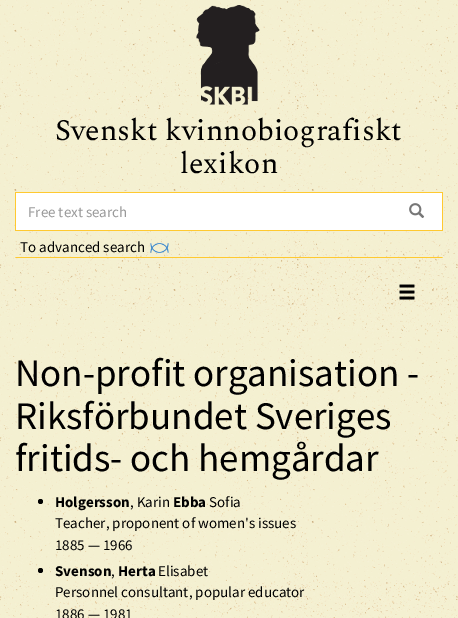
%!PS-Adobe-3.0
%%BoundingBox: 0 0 458 618
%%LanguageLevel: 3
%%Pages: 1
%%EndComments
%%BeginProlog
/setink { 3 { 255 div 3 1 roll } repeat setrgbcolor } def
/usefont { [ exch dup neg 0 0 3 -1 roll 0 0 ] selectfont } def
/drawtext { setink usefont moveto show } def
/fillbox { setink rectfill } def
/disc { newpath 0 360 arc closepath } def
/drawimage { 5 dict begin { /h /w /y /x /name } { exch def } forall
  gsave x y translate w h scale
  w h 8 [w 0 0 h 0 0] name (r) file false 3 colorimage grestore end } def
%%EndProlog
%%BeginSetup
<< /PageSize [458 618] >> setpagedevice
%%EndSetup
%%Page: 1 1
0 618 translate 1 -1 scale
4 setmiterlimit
0 0 458 618 244 240 209 fillbox
(assets/img1.rgb) 0 0 458 618 drawimage
(assets/img2.rgb) 196 5 64 100 drawimage
(Svenskt kvinnobiografiskt) 55 140 /Spectral-Regular 30 0 0 0 drawtext
(lexikon) 180 173 /Spectral-Regular 30 0 0 0 drawtext
16 193 426 37 255 255 255 fillbox
15 192 428 1 255 201 48 fillbox
442 192 1 39 255 201 48 fillbox
15 230 428 1 255 201 48 fillbox
(assets/img3.rgb) 409 203 16 15 drawimage
15 192 1 39 255 201 48 fillbox
(Free text search) 28 217 /SourceSansPro-Regular 15 153 153 153 drawtext
(To advanced search) 20 252 /SourceSansPro-Regular 15 0 0 0 drawtext
(assets/img4.rgb) 150 243 19 10 drawimage
255 201 48 setink
15 257 moveto 443 257 lineto 442 258 lineto 16 258 lineto closepath fill
(assets/img5.rgb) 399 284 16 16 drawimage
(Non-profit organisation -) 15 386 /SourceSansPro-Regular 39 0 0 0 drawtext
(Riksförbundet Sveriges) 15 429 /SourceSansPro-Regular 39 0 0 0 drawtext
(fritids- och hemgårdar) 15 471 /SourceSansPro-Regular 39 0 0 0 drawtext
40.5 501.5 2.5 disc fill
(Holgersson) 55 507 /SourceSansPro-Bold 15 0 0 0 drawtext
(, Karin) 130 507 /SourceSansPro-Regular 15 0 0 0 drawtext
(Ebba) 173 507 /SourceSansPro-Bold 15 0 0 0 drawtext
(Sofia) 209 507 /SourceSansPro-Regular 15 0 0 0 drawtext
(Teacher, proponent of women's issues) 55 528 /SourceSansPro-Regular 15 0 0 0 drawtext
(1885 — 1966) 55 550 /SourceSansPro-Regular 15 0 0 0 drawtext
40.5 570.5 2.5 disc fill
(Svenson) 55 576 /SourceSansPro-Bold 15 0 0 0 drawtext
(Herta) 118 576 /SourceSansPro-Bold 15 0 0 0 drawtext
(Elisabet) 158 576 /SourceSansPro-Regular 15 0 0 0 drawtext
(,) 111 576 /SourceSansPro-Regular 15 0 0 0 drawtext
(Personnel consultant, popular educator) 55 597 /SourceSansPro-Regular 15 0 0 0 drawtext
(1886 — 1981) 55 619 /SourceSansPro-Regular 15 0 0 0 drawtext
showpage
%%EOF
